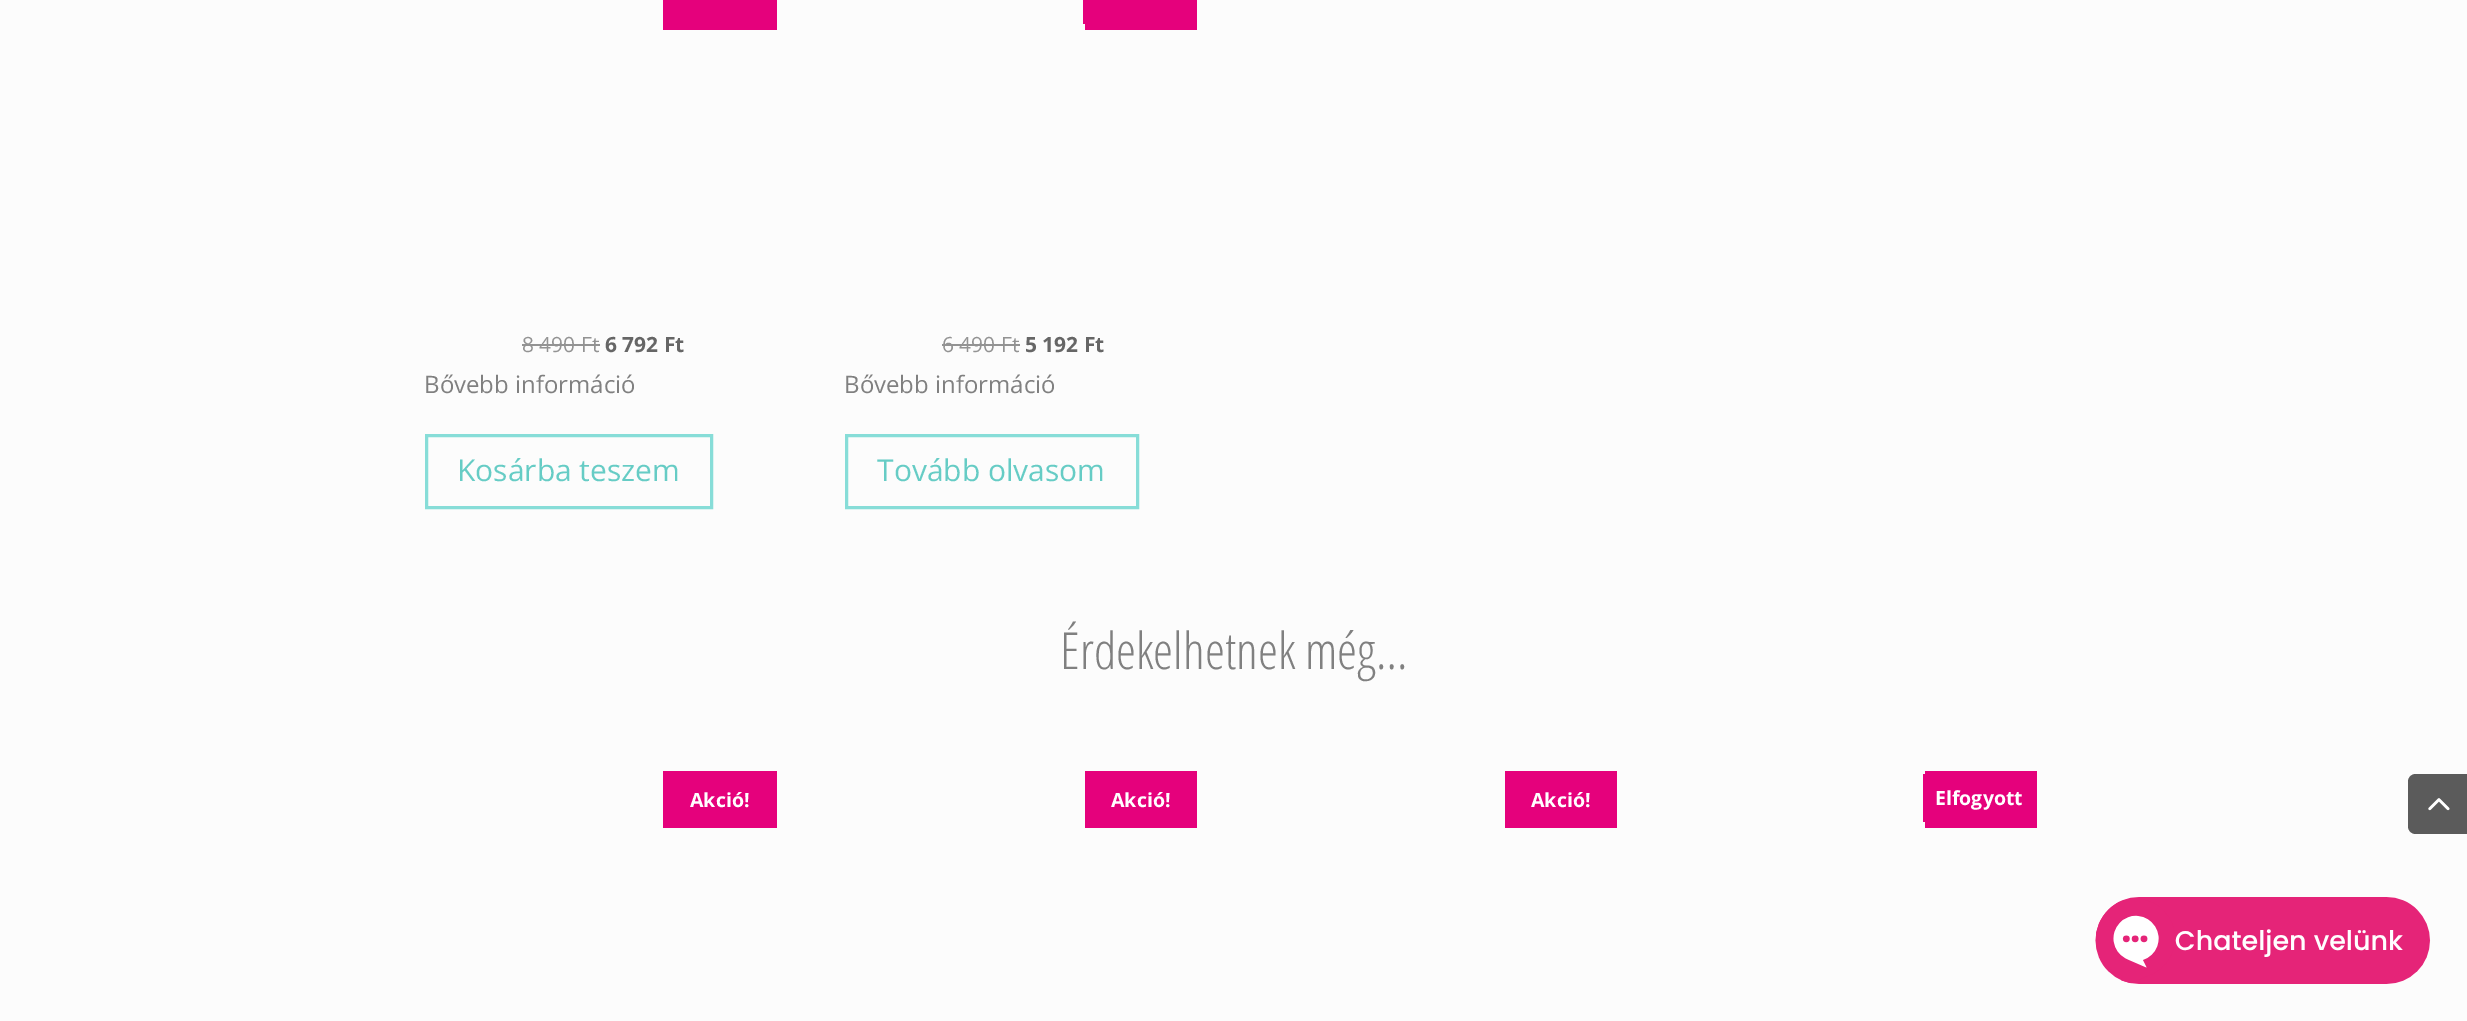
%!PS-Adobe-3.0
%%BoundingBox: 0 0 2467 1021
%%LanguageLevel: 3
%%Pages: 1
%%EndComments
%%BeginProlog
/setink { 3 { 255 div 3 1 roll } repeat setrgbcolor } def
/usefont { [ exch dup neg 0 0 3 -1 roll 0 0 ] selectfont } def
/drawtext { setink usefont moveto show } def
/fillbox { setink rectfill } def
/setalpha { dup .setfillconstantalpha .setstrokeconstantalpha } def
/drawimage { 5 dict begin { /h /w /y /x /name } { exch def } forall
  gsave x y translate w h scale
  w h 8 [w 0 0 h 0 0] name (r) file false 3 colorimage grestore end } def
%%EndProlog
%%BeginSetup
<< /PageSize [2467 1021] /PageUsesTransparency true >> setpagedevice
%%EndSetup
%%Page: 1 1
0 .pushpdf14devicefilter
0 1021 translate 1 -1 scale
4 setmiterlimit
0 0 2467 1021 252 252 252 fillbox
663 0 114 30 229 1 124 fillbox
(8 490 Ft) 522 352 /OpenSans-Regular 21 147 147 147 drawtext
522 344 78 2 147 147 147 fillbox
(6 792 Ft) 605 352 /OpenSans-Bold 21 102 102 102 drawtext
(Bővebb információ) 424 393 /OpenSans-Regular 24 128 128 128 drawtext
135 221 216 setink
3 setlinewidth
426.5 435.5 285 72 rectstroke
(Kosárba teszem) 457 481 /OpenSans-Regular 30 102 204 197 drawtext
1083 0 2 24 229 1 124 fillbox
1085 0 112 30 229 1 124 fillbox
(6 490 Ft) 942 352 /OpenSans-Regular 21 147 147 147 drawtext
942 344 78 2 147 147 147 fillbox
(5 192 Ft) 1025 352 /OpenSans-Bold 21 102 102 102 drawtext
(Bővebb információ) 844 393 /OpenSans-Regular 24 128 128 128 drawtext
135 221 216 setink
846.5 435.5 291 72 rectstroke
(Tovább olvasom) 877 481 /OpenSans-Regular 30 102 204 197 drawtext
(Érdekelhetnek még…) 1060 669 /OpenSansCondensed-Light 51 128 128 128 drawtext
663 771 114 57 229 1 124 fillbox
(Akció!) 690 807 /OpenSans-Bold 19.5 255 255 255 drawtext
1085 771 112 57 229 1 124 fillbox
(Akció!) 1111 807 /OpenSans-Bold 19.5 255 255 255 drawtext
1505 771 112 57 229 1 124 fillbox
(Akció!) 1531 807 /OpenSans-Bold 19.5 255 255 255 drawtext
1925 771 112 57 229 1 124 fillbox
1923 774 2 48 229 1 124 fillbox
(Elfogyott) 1935 805 /OpenSans-Bold 19.5 255 255 255 drawtext
151 151 151 setink
2416 774 moveto 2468 774 lineto 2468 834 lineto 2416 834 lineto 2411.5 834 2408 830.5 2408 826 curveto 2408 782 lineto 2408 777.5 2411.5 774 2416 774 curveto closepath fill
(assets/img1.rgb) 2428 798 22 13 drawimage
0.4 setalpha
0 0 0 setink
2416 774 moveto 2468 774 lineto 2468 834 lineto 2416 834 lineto 2411.5 834 2408 830.5 2408 826 curveto 2408 782 lineto 2408 777.5 2411.5 774 2416 774 curveto closepath fill
1 setalpha
(assets/img2.rgb) 2428 798 22 13 drawimage
(assets/img3.rgb) 2095 897 336 87 drawimage
.poppdf14devicefilter showpage
%%EOF
